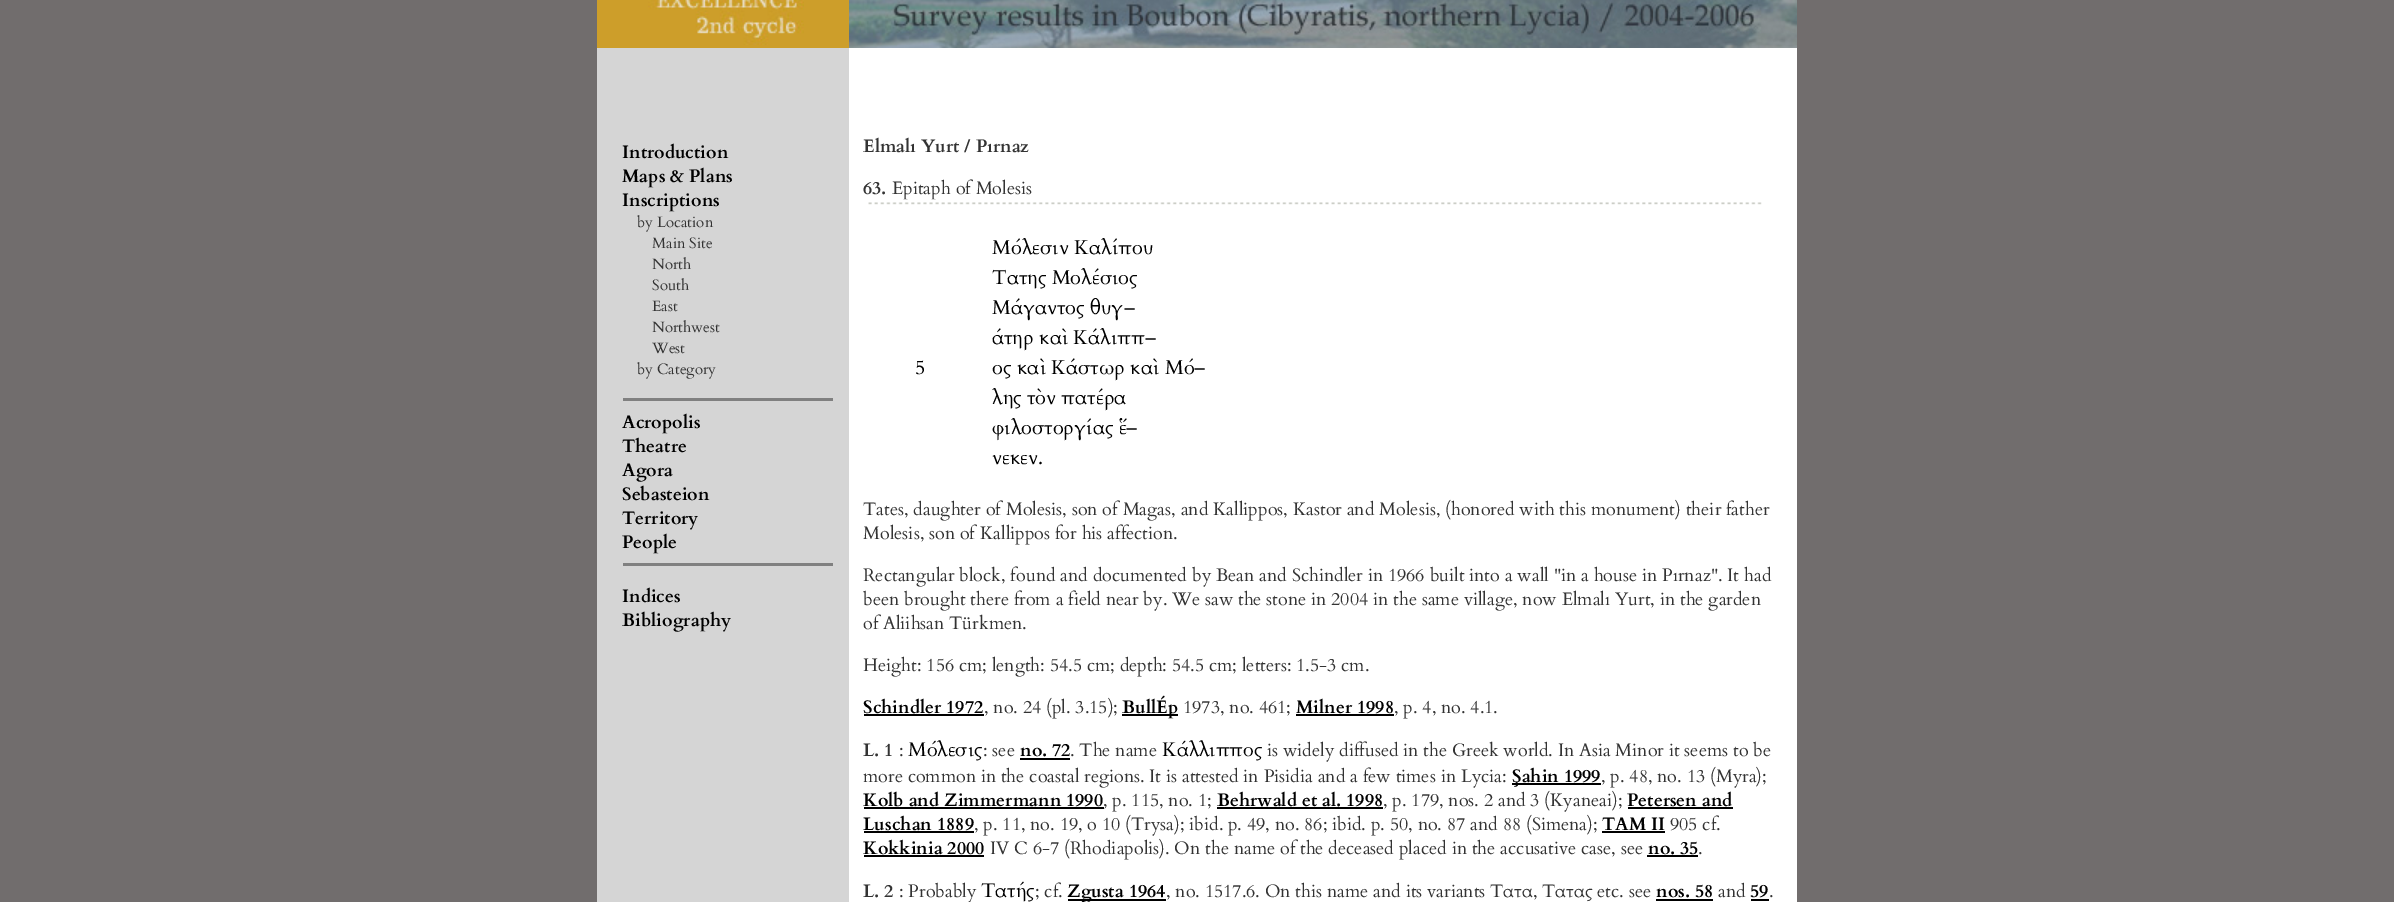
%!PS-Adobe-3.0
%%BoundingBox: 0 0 2394 902
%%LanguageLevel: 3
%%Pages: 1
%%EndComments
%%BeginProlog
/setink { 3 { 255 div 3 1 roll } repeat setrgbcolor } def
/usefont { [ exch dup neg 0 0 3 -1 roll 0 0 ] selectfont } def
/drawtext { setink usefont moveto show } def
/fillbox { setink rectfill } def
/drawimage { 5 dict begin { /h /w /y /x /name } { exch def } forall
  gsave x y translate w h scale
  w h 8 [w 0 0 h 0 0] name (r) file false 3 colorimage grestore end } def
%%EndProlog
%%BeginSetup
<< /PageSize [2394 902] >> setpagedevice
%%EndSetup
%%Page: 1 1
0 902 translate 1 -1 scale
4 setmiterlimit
0 0 2394 902 113 109 109 fillbox
597 0 252 48 205 158 42 fillbox
(assets/img1.rgb) 648 0 156 45 drawimage
(assets/img2.rgb) 849 0 948 48 drawimage
597 48 252 854 213 213 213 fillbox
(Introduction) 622 158 /Cardo-Bold 18 0 0 0 drawtext
(Maps & Plans) 622 182 /Cardo-Bold 18 0 0 0 drawtext
(Inscriptions) 622 206 /Cardo-Bold 18 0 0 0 drawtext
(by Location) 637 227 /Cardo-Regular 15 51 51 51 drawtext
(Main Site) 652 248 /Cardo-Regular 15 51 51 51 drawtext
(North) 652 269 /Cardo-Regular 15 51 51 51 drawtext
(South) 652 290 /Cardo-Regular 15 51 51 51 drawtext
(East) 652 311 /Cardo-Regular 15 51 51 51 drawtext
(Northwest) 652 332 /Cardo-Regular 15 51 51 51 drawtext
(West) 652 353 /Cardo-Regular 15 51 51 51 drawtext
(by Category) 637 374 /Cardo-Regular 15 51 51 51 drawtext
623 398 210 3 128 128 128 fillbox
(Acropolis) 622 428 /Cardo-Bold 18 0 0 0 drawtext
(Theatre) 622 452 /Cardo-Bold 18 0 0 0 drawtext
(Agora) 622 476 /Cardo-Bold 18 0 0 0 drawtext
(Sebasteion) 622 500 /Cardo-Bold 18 0 0 0 drawtext
(Territory) 622 524 /Cardo-Bold 18 0 0 0 drawtext
(People) 622 548 /Cardo-Bold 18 0 0 0 drawtext
623 563 210 3 128 128 128 fillbox
(Indices) 622 602 /Cardo-Bold 18 0 0 0 drawtext
(Bibliography) 622 626 /Cardo-Bold 18 0 0 0 drawtext
849 48 948 854 255 255 255 fillbox
(Elmalı Yurt / Pırnaz) 863 152 /Cardo-Bold 18 51 51 51 drawtext
(63.) 863 194 /Cardo-Bold 18 51 51 51 drawtext
(Epitaph of Molesis) 892 194 /Cardo-Regular 18 51 51 51 drawtext
(assets/img3.rgb) 868 199 894 6 drawimage
(5) 915 374 /Cardo-Regular 20 0 0 0 drawtext
(Μόλεσιν Καλίπου) 992 254 /Cardo-Regular 20 0 0 0 drawtext
(Τατης Μολέσιος) 992 284 /Cardo-Regular 20 0 0 0 drawtext
(Μάγαντος θυγ–) 992 314 /Cardo-Regular 20 0 0 0 drawtext
(άτηρ καὶ Κάλιππ–) 992 344 /Cardo-Regular 20 0 0 0 drawtext
(ος καὶ Κάστωρ καὶ Μό–) 992 374 /Cardo-Regular 20 0 0 0 drawtext
(λης τὸν πατέρα) 992 404 /Cardo-Regular 20 0 0 0 drawtext
(φιλοστοργίας ἕ–) 992 434 /Cardo-Regular 20 0 0 0 drawtext
(νεκεν.) 992 464 /Cardo-Regular 20 0 0 0 drawtext
(Tates, daughter of Molesis, son of Magas, and Kallippos, Kastor and Molesis, \(honored with this monument\) their father) 863 515 /Cardo-Regular 18 51 51 51 drawtext
(Molesis, son of Kallippos for his affection.) 863 539 /Cardo-Regular 18 51 51 51 drawtext
(Rectangular block, found and documented by Bean and Schindler in 1966 built into a wall "in a house in Pırnaz". It had) 863 581 /Cardo-Regular 18 51 51 51 drawtext
(been brought there from a field near by. We saw the stone in 2004 in the same village, now Elmalı Yurt, in the garden) 863 605 /Cardo-Regular 18 51 51 51 drawtext
(of Aliihsan Türkmen.) 863 629 /Cardo-Regular 18 51 51 51 drawtext
(Height: 156 cm; length: 54.5 cm; depth: 54.5 cm; letters: 1.5-3 cm.) 863 671 /Cardo-Regular 18 51 51 51 drawtext
(Schindler 1972) 863 713 /Cardo-Bold 18 0 0 0 drawtext
864 714 120 2 0 0 0 fillbox
(, no. 24 \(pl. 3.15\);) 984 713 /Cardo-Regular 18 51 51 51 drawtext
1122 714 56 2 0 0 0 fillbox
(BullÉp) 1122 713 /Cardo-Bold 18 0 0 0 drawtext
(1973, no. 461;) 1183 713 /Cardo-Regular 18 51 51 51 drawtext
(Milner 1998) 1296 713 /Cardo-Bold 18 0 0 0 drawtext
1296 714 98 2 0 0 0 fillbox
(, p. 4, no. 4.1.) 1394 713 /Cardo-Regular 18 51 51 51 drawtext
(L. 1) 863 756 /Cardo-Bold 18 51 51 51 drawtext
(:) 899 756 /Cardo-Regular 18 51 51 51 drawtext
(Μόλεσις) 908 756 /Cardo-Regular 19.75 0 0 0 drawtext
(: see) 983 756 /Cardo-Regular 18 51 51 51 drawtext
(no. 72) 1020 756 /Cardo-Bold 18 0 0 0 drawtext
1020 758 50 2 0 0 0 fillbox
(. The name) 1070 756 /Cardo-Regular 18 51 51 51 drawtext
(Κάλλιππος) 1162 756 /Cardo-Regular 19.75 0 0 0 drawtext
(is widely diffused in the Greek world. In Asia Minor it seems to be) 1267 756 /Cardo-Regular 18 51 51 51 drawtext
(more common in the coastal regions. It is attested in Pisidia and a few times in Lycia:) 863 782 /Cardo-Regular 18 51 51 51 drawtext
1512 783 89 2 0 0 0 fillbox
(Şahin 1999) 1512 782 /Cardo-Bold 18 0 0 0 drawtext
(, p. 48, no. 13 \(Myra\);) 1601 782 /Cardo-Regular 18 51 51 51 drawtext
(Kolb and Zimmermann 1990) 863 806 /Cardo-Bold 18 0 0 0 drawtext
864 807 240 2 0 0 0 fillbox
(, p. 115, no. 1;) 1103 806 /Cardo-Regular 18 51 51 51 drawtext
(Behrwald et al. 1998) 1217 806 /Cardo-Bold 18 0 0 0 drawtext
1217 807 166 2 0 0 0 fillbox
(, p. 179, nos. 2 and 3 \(Kyaneai\);) 1383 806 /Cardo-Regular 18 51 51 51 drawtext
(Petersen and) 1627 806 /Cardo-Bold 18 0 0 0 drawtext
1628 807 105 2 0 0 0 fillbox
(Luschan 1889) 863 830 /Cardo-Bold 18 0 0 0 drawtext
864 831 110 2 0 0 0 fillbox
(, p. 11, no. 19, o 10 \(Trysa\); ibid. p. 49, no. 86; ibid. p. 50, no. 87 and 88 \(Simena\);) 974 830 /Cardo-Regular 18 51 51 51 drawtext
(TAM II) 1602 830 /Cardo-Bold 18 0 0 0 drawtext
1602 831 63 2 0 0 0 fillbox
(905 cf.) 1670 830 /Cardo-Regular 18 51 51 51 drawtext
(Kokkinia 2000) 863 854 /Cardo-Bold 18 0 0 0 drawtext
864 855 120 2 0 0 0 fillbox
(IV C 6-7 \(Rhodiapolis\). On the name of the deceased placed in the accusative case, see) 990 854 /Cardo-Regular 18 51 51 51 drawtext
(no. 35) 1648 854 /Cardo-Bold 18 0 0 0 drawtext
1647 855 51 2 0 0 0 fillbox
(.) 1698 854 /Cardo-Regular 18 51 51 51 drawtext
(L. 2) 863 897 /Cardo-Bold 18 51 51 51 drawtext
(: Probably) 899 897 /Cardo-Regular 18 51 51 51 drawtext
(Tατής) 981 897 /Cardo-Regular 19.75 0 0 0 drawtext
(; cf.) 1035 897 /Cardo-Regular 18 51 51 51 drawtext
1068 899 98 2 0 0 0 fillbox
(Zgusta 1964) 1067 897 /Cardo-Bold 18 0 0 0 drawtext
(, no. 1517.6. On this name and its variants Τατα, Τατας etc. see) 1166 897 /Cardo-Regular 18 51 51 51 drawtext
(nos. 58) 1656 897 /Cardo-Bold 18 0 0 0 drawtext
1656 899 57 2 0 0 0 fillbox
(and) 1718 897 /Cardo-Regular 18 51 51 51 drawtext
(59) 1750 897 /Cardo-Bold 18 0 0 0 drawtext
1751 899 18 2 0 0 0 fillbox
(.) 1769 897 /Cardo-Regular 18 51 51 51 drawtext
showpage
%%EOF
